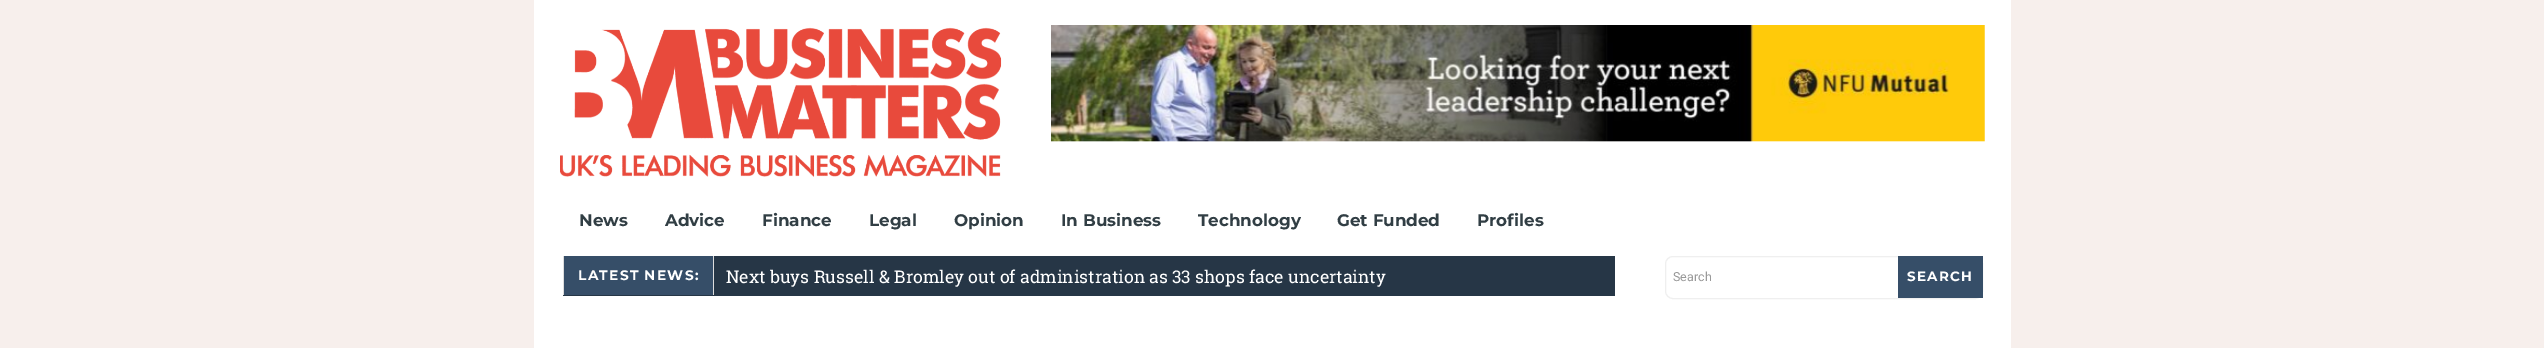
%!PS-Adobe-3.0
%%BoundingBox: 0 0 2544 348
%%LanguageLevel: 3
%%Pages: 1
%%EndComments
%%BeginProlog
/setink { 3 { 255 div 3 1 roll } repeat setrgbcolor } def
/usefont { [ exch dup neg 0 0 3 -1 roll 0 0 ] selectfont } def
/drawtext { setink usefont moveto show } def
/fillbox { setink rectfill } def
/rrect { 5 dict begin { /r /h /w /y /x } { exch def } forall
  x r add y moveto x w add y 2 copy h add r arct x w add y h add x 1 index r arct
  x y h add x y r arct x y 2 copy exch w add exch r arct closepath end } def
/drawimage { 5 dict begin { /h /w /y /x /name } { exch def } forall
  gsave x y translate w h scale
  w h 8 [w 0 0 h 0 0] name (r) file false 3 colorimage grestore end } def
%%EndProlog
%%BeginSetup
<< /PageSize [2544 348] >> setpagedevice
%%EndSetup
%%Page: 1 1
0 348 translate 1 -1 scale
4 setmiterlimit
0 0 2544 348 247 239 236 fillbox
534 0 1477 348 255 255 255 fillbox
(assets/img1.rgb) 560 27 442 150 drawimage
(assets/img2.rgb) 1051 25 934 117 drawimage
(News) 579 226 /Montserrat-Bold 16.75 49 62 68 drawtext
(Advice) 665 226 /Montserrat-Bold 16.75 49 62 68 drawtext
(Finance) 762 226 /Montserrat-Bold 16.75 49 62 68 drawtext
(Legal) 869 226 /Montserrat-Bold 16.75 49 62 68 drawtext
(Opinion) 954 226 /Montserrat-Bold 16.75 49 62 68 drawtext
(In Business) 1061 226 /Montserrat-Bold 16.75 49 62 68 drawtext
(Technology) 1198 226 /Montserrat-Bold 16.75 49 62 68 drawtext
(Get Funded) 1337 226 /Montserrat-Bold 16.75 49 62 68 drawtext
(Profiles) 1477 226 /Montserrat-Bold 16.75 49 62 68 drawtext
563 256 1052 40 38 54 70 fillbox
564 256 149 39 54 78 104 fillbox
713 256 1 39 221 221 221 fillbox
563 256 1 39 221 221 221 fillbox
/Montserrat-Bold 13.75 usefont
255 255 255 setink
578 280 moveto 1.25 0 (LATEST NEWS:) ashow
(Next buys Russell & Bromley out of administration as 33 shops face uncertainty) 726 283 /RobotoSlab-Regular 17.5 255 255 255 drawtext
239 239 239 setink
1665.5 256.5 317 42 7.5 rrect stroke
(Search) 1673 281 /Roboto-Regular 12.5 153 153 153 drawtext
1898 256 85 42 54 78 104 fillbox
/Montserrat-Bold 13.5 usefont
255 255 255 setink
1907 281 moveto 1.25 0 (SEARCH) ashow
showpage
%%EOF
